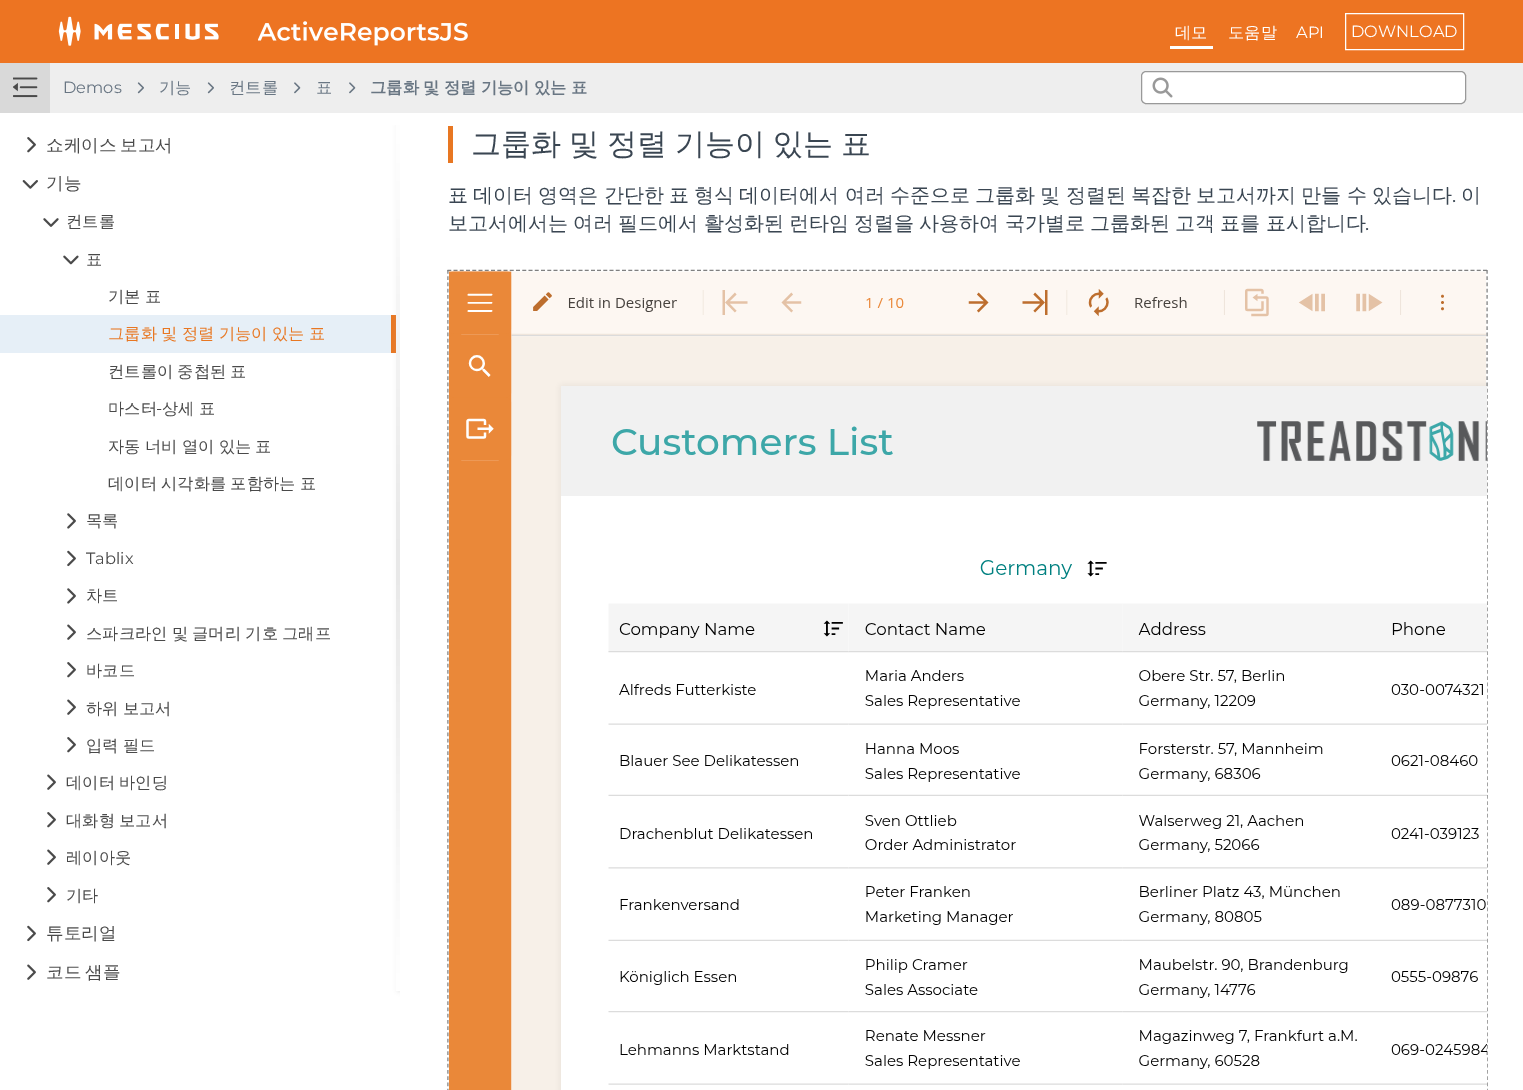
%!PS-Adobe-3.0
%%BoundingBox: 0 0 1523 1090
%%LanguageLevel: 3
%%Pages: 1
%%EndComments
%%BeginProlog
/setink { 3 { 255 div 3 1 roll } repeat setrgbcolor } def
/usefont { [ exch dup neg 0 0 3 -1 roll 0 0 ] selectfont } def
/drawtext { setink usefont moveto show } def
/fillbox { setink rectfill } def
/setalpha { dup .setfillconstantalpha .setstrokeconstantalpha } def
/rrect { 5 dict begin { /r /h /w /y /x } { exch def } forall
  x r add y moveto x w add y 2 copy h add r arct x w add y h add x 1 index r arct
  x y h add x y r arct x y 2 copy exch w add exch r arct closepath end } def
/softshadow { 12 dict begin { /a /b /q /h /w /y /x } { exch def } forall gsave /was 0 def
  9 -2 -9 { dup b mul 4 div /e exch def 1 sub .425 mul 2.718 exch exp 1 add a .99 .min exch div /now exch def
    1 1 now sub 1 was sub div sub setalpha /was now def
    w h .min e 2 mul add 0 gt { x e sub y e sub w e 2 mul add h e 2 mul add
      q e add b .6 mul add w h .min 2 div e add .min 0 .max rrect fill } if } for grestore end } def
/drawimage { 5 dict begin { /h /w /y /x /name } { exch def } forall
  gsave x y translate w h scale
  w h 8 [w 0 0 h 0 0] name (r) file false 3 colorimage grestore end } def
%%EndProlog
%%BeginSetup
<< /PageSize [1523 1090] /PageUsesTransparency true >> setpagedevice
%%EndSetup
%%Page: 1 1
0 .pushpdf14devicefilter
0 1090 translate 1 -1 scale
4 setmiterlimit
0 0 1523 1090 255 255 255 fillbox
0 0 1523 63 237 116 34 fillbox
(assets/img1.rgb) 58 16 161 30 drawimage
(assets/img2.rgb) 258 21 210 25 drawimage
(데모) 1175 38 /WenQuanYiZenHei-Medium 16.25 255 255 255 drawtext
1170 46 43 3 255 255 255 fillbox
(도움말) 1228 38 /WenQuanYiZenHei-Medium 16.25 255 255 255 drawtext
(API) 1296 38 /Montserrat-Regular 16.25 255 255 255 drawtext
1345.5 13.5 118 36 rectstroke
(DOWNLOAD) 1351 37 /Montserrat-Regular 16.25 255 255 255 drawtext
50 63 1473 50 238 238 238 fillbox
0 63 50 50 217 217 217 fillbox
(assets/img3.rgb) 13 77 25 21 drawimage
(Demos) 63 93 /Montserrat-Regular 16.25 105 118 131 drawtext
(assets/img4.rgb) 137 82 7 12 drawimage
(기능) 159 93 /WenQuanYiZenHei-Medium 16.25 105 118 131 drawtext
(assets/img4.rgb) 207 82 7 12 drawimage
(컨트롤) 229 93 /WenQuanYiZenHei-Medium 16.25 105 118 131 drawtext
(assets/img5.rgb) 294 82 7 12 drawimage
(표) 316 93 /WenQuanYiZenHei-Medium 16.25 105 118 131 drawtext
(assets/img5.rgb) 349 82 7 12 drawimage
/WenQuanYiZenHei-Bold 16.25 usefont
370 93 moveto -0.5 0 32 (그룹화 및 정렬 기능이 있는 표) widthshow
255 255 255 setink
1141.5 71.5 324 32 4.5 rrect gsave fill grestore
153 153 153 setink
stroke
(assets/img6.rgb) 1152 77 21 21 drawimage
(assets/img7.rgb) 27 137 9 16 drawimage
/WenQuanYiZenHei-Medium 17.5 usefont
74 74 74 setink
46 151 moveto -1 0 32 (쇼케이스 보고서) widthshow
(assets/img8.rgb) 22 180 16 9 drawimage
(기능) 46 189 /WenQuanYiZenHei-Medium 17.5 74 74 74 drawtext
(assets/img9.rgb) 43 218 16 9 drawimage
(컨트롤) 66 227 /WenQuanYiZenHei-Medium 16.25 74 74 74 drawtext
(assets/img10.rgb) 63 255 16 10 drawimage
(표) 86 265 /WenQuanYiZenHei-Medium 16.25 74 74 74 drawtext
108 302 moveto -0.5 0 32 (기본 표) widthshow
0 315 391 38 230 239 247 fillbox
391 315 5 38 232 119 34 fillbox
108 339 moveto -0.5 0 32 (그룹화 및 정렬 기능이 있는 표) widthshow
74 74 74 setink
108 377 moveto -0.5 0 32 (컨트롤이 중첩된 표) widthshow
(마스터) 108 414 /WenQuanYiZenHei-Medium 16.25 74 74 74 drawtext
(-) 156 414 /Montserrat-Regular 16.25 74 74 74 drawtext
/WenQuanYiZenHei-Medium 16.25 usefont
162 414 moveto -0.5 0 32 (상세 표) widthshow
108 452 moveto -0.5 0 32 (자동 너비 열이 있는 표) widthshow
108 489 moveto -0.5 0 32 (데이터 시각화를 포함하는 표) widthshow
(assets/img11.rgb) 67 513 9 16 drawimage
(목록) 86 526 /WenQuanYiZenHei-Medium 16.25 74 74 74 drawtext
(assets/img12.rgb) 67 550 9 17 drawimage
(Tablix) 86 564 /Montserrat-Regular 16.25 74 74 74 drawtext
(assets/img11.rgb) 67 588 9 16 drawimage
(차트) 86 601 /WenQuanYiZenHei-Medium 16.25 74 74 74 drawtext
(assets/img13.rgb) 67 624 9 16 drawimage
86 639 moveto -0.5 0 32 (스파크라인 및 글머리 기호 그래프) widthshow
(assets/img7.rgb) 67 662 9 16 drawimage
(바코드) 86 676 /WenQuanYiZenHei-Medium 16.25 74 74 74 drawtext
(assets/img13.rgb) 67 699 9 16 drawimage
86 714 moveto -0.5 0 32 (하위 보고서) widthshow
(assets/img7.rgb) 67 737 9 16 drawimage
86 751 moveto -0.5 0 32 (입력 필드) widthshow
(assets/img13.rgb) 47 774 9 16 drawimage
66 788 moveto -0.5 0 32 (데이터 바인딩) widthshow
(assets/img7.rgb) 47 812 9 16 drawimage
66 826 moveto -0.5 0 32 (대화형 보고서) widthshow
(assets/img13.rgb) 47 849 9 16 drawimage
(레이아웃) 66 863 /WenQuanYiZenHei-Medium 16.25 74 74 74 drawtext
(assets/img7.rgb) 47 887 9 16 drawimage
(기타) 66 901 /WenQuanYiZenHei-Medium 16.25 74 74 74 drawtext
(assets/img12.rgb) 27 925 9 17 drawimage
(튜토리얼) 46 939 /WenQuanYiZenHei-Medium 17.5 74 74 74 drawtext
(assets/img13.rgb) 27 964 9 16 drawimage
46 978 moveto -1 0 32 (코드 샘플) widthshow
gsave
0 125 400 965 rectclip
196 196 196 setink
398 125 4 866 0 2.5 0.5 softshadow
grestore
gsave 396 125 moveto 400 125 lineto 400 991 lineto 396 991 lineto closepath clip newpath
<< /ShadingType 2 /ColorSpace /DeviceRGB /Coords [398 125 398 991] /Extend [true true] /Function << /FunctionType 3 /Domain [0 1] /Functions [<< /FunctionType 2 /Domain [0 1] /C0 [1 1 1] /C1 [0.91 0.91 0.91] /N 1 >> << /FunctionType 2 /Domain [0 1] /C0 [0.91 0.91 0.91] /C1 [1 1 1] /N 1 >>] /Bounds [0.51] /Encode [0 1 0 1] >> >> shfill grestore
448 126 5 37 232 119 34 fillbox
/WenQuanYiZenHei-Medium 30 usefont
58 70 82 setink
471 154 moveto -1 0 32 (그룹화 및 정렬 기능이 있는 표) widthshow
/WenQuanYiZenHei-Medium 20 usefont
448 202 moveto -0.75 0 32 (표 데이터 영역은 간단한 표 형식 데이터에서 여러 수준으로 그룹화 및 정렬된 복잡한 보고서까지 만들 수 있습니다) widthshow
(.) 1452 202 /Montserrat-Regular 20 58 70 82 drawtext
(이) 1461 202 /WenQuanYiZenHei-Medium 20 58 70 82 drawtext
448 230 moveto -0.75 0 32 (보고서에서는 여러 필드에서 활성화된 런타임 정렬을 사용하여 국가별로 그룹화된 고객 표를 표시합니다) widthshow
(.) 1365 230 /Montserrat-Regular 20 58 70 82 drawtext
128 128 128 setink
1.2 setlinewidth
[3.75 2.49] 0 setdash
447.5 270.5 moveto 1487.5 270.5 lineto stroke
[3.75 2.5] 0 setdash
1487 270 moveto 1487 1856 lineto stroke
448 270 moveto 448 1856 lineto stroke
(assets/img14.rgb) 448 271 1039 819 drawimage
.poppdf14devicefilter showpage
%%EOF
